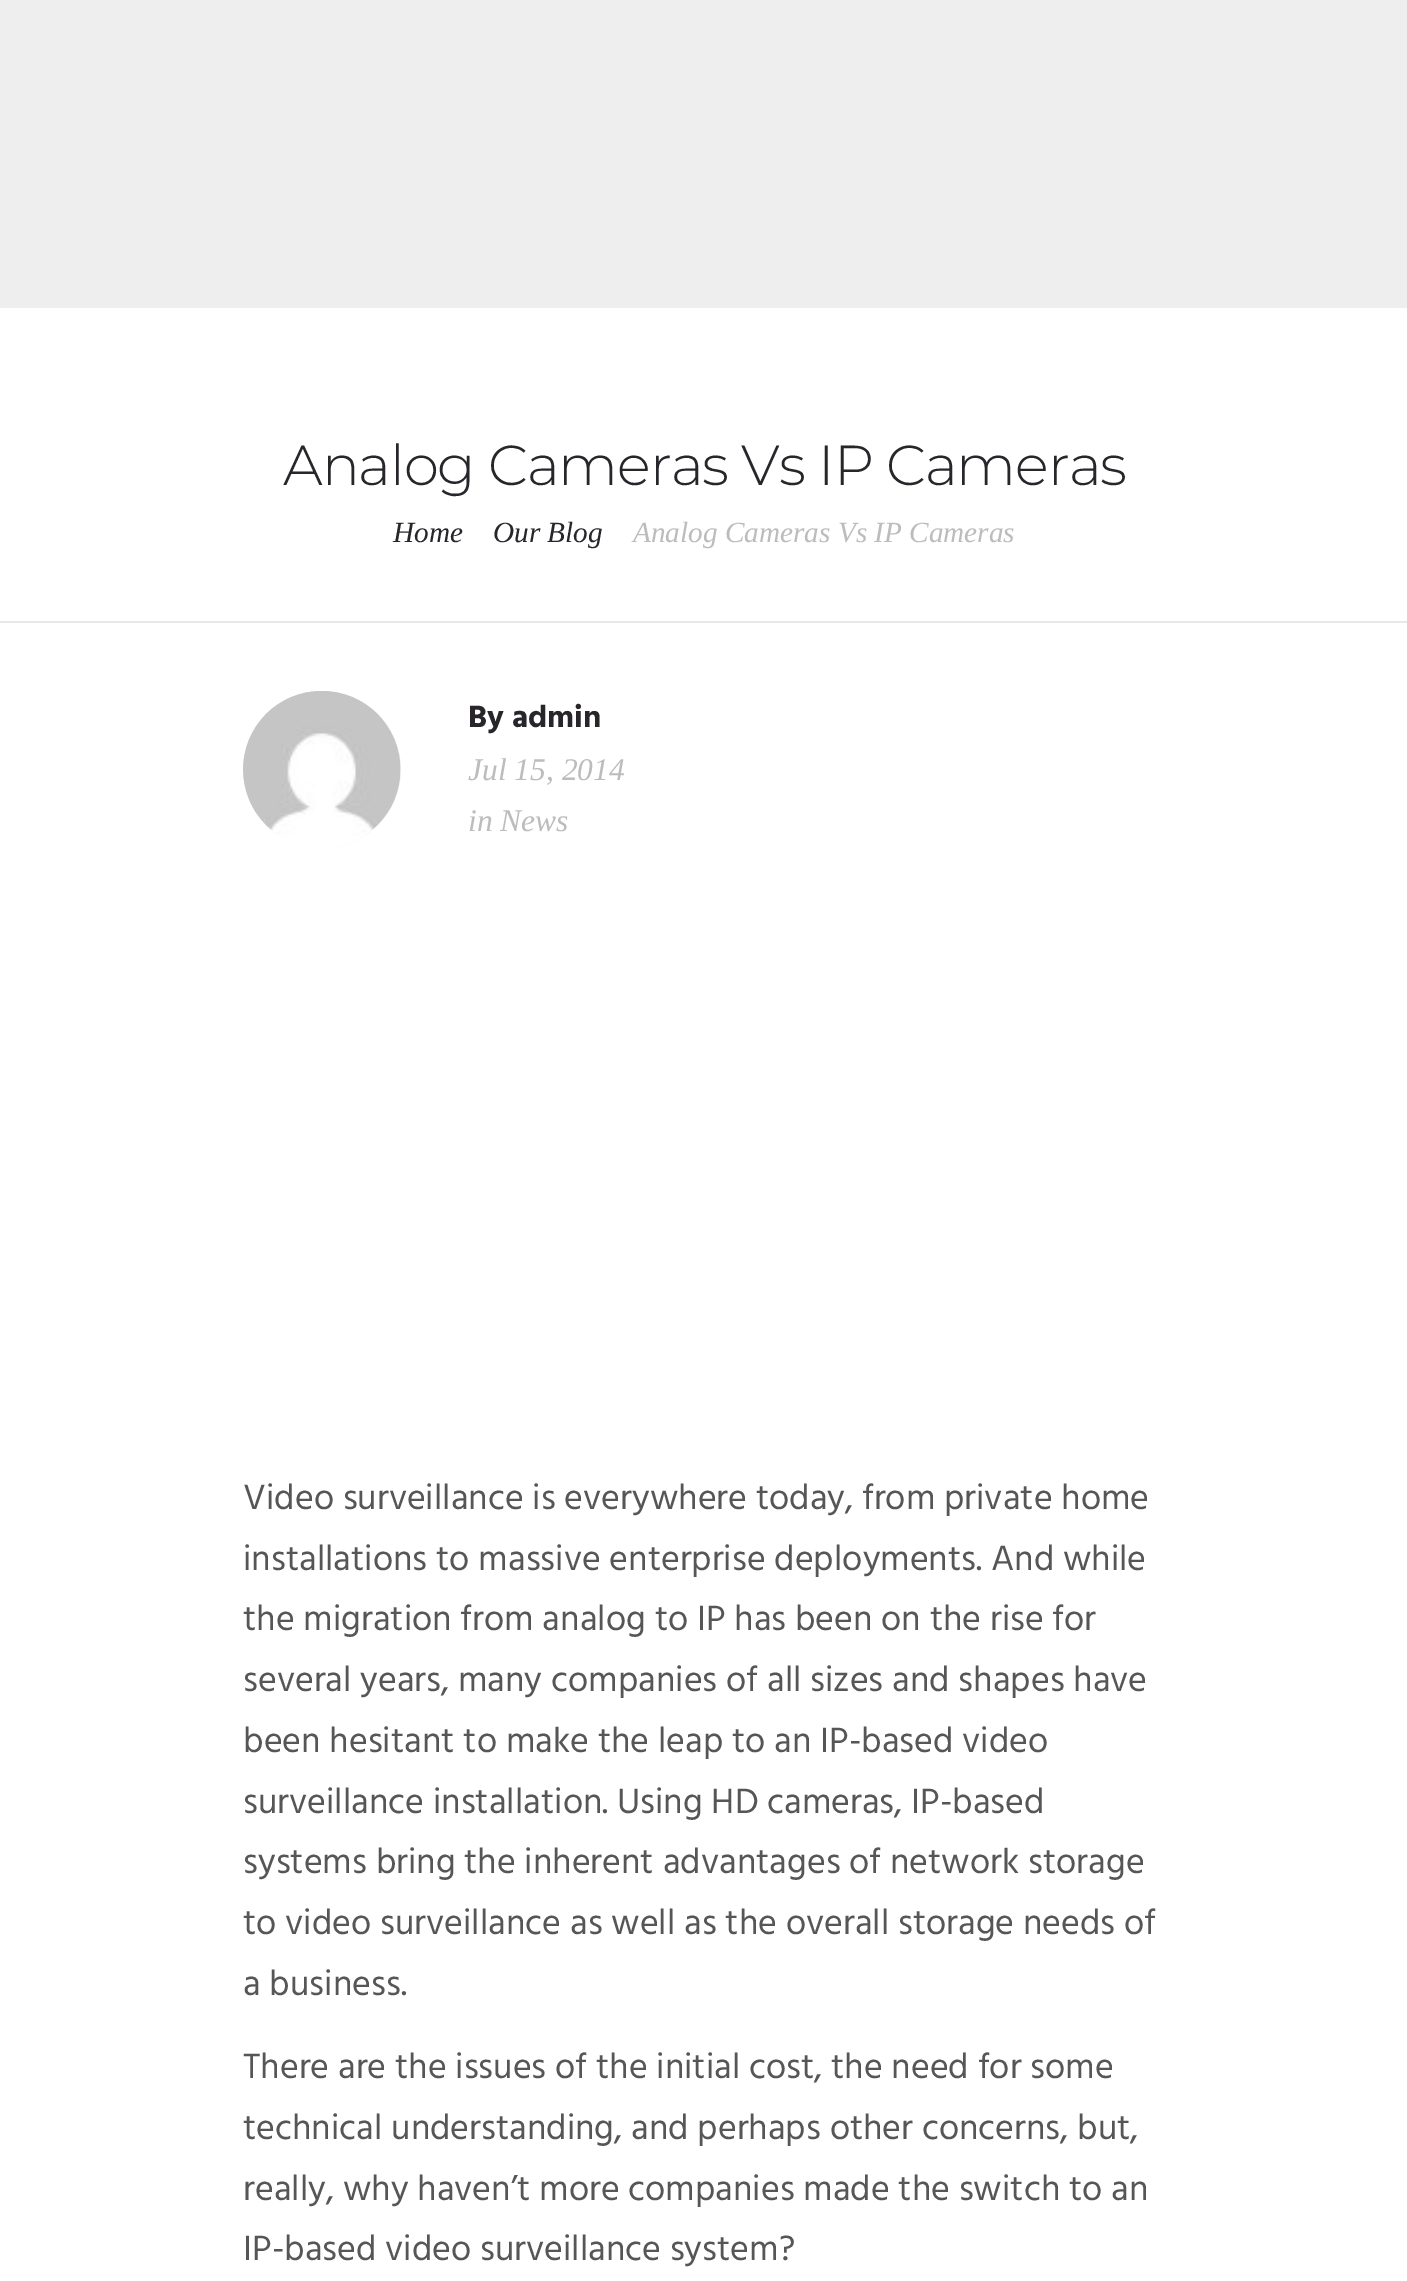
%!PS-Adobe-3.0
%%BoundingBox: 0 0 1407 2281
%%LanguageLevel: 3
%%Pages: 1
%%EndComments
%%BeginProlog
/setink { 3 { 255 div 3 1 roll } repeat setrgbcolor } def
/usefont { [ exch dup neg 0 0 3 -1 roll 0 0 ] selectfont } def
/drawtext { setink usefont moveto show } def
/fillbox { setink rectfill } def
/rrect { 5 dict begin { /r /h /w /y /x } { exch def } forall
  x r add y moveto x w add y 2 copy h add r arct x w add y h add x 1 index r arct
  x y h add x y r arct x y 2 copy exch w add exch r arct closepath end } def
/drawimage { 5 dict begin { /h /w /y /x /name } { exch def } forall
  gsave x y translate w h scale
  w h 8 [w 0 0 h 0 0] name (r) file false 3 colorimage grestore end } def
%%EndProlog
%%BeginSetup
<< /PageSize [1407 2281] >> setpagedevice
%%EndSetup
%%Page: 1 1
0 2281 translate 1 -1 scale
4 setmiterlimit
0 0 1407 2281 238 238 238 fillbox
0 308 1407 1973 255 255 255 fillbox
0 621 1407 2 232 232 232 fillbox
/Montserrat-Light 56.25 usefont
40 38 43 setink
283 485 moveto -1.1 0 (Analog Cameras Vs IP Cameras) ashow
(Home) 393 542 /LiberationSerif-Italic 29.25 40 38 43 drawtext
(Our Blog) 493 542 /LiberationSerif-Italic 29.25 40 38 43 drawtext
(Analog Cameras Vs IP Cameras) 633 542 /LiberationSerif-Italic 29.25 188 188 188 drawtext
240 240 240 setink
243 691 158 157 78.5 rrect fill
(assets/img1.rgb) 243 691 158 157 drawimage
(By admin) 468 727 /Hind-Bold 31.5 40 38 43 drawtext
(Jul 15, 2014) 468 780 /LiberationSerif-Italic 31.5 188 188 188 drawtext
(in News) 468 831 /LiberationSerif-Italic 31.5 188 188 188 drawtext
(Video surveillance is everywhere today, from private home) 243 1509 /Hind-Regular 36 86 86 86 drawtext
(installations to massive enterprise deployments. And while) 243 1570 /Hind-Regular 36 86 86 86 drawtext
(the migration from analog to IP has been on the rise for) 243 1630 /Hind-Regular 36 86 86 86 drawtext
(several years, many companies of all sizes and shapes have) 243 1691 /Hind-Regular 36 86 86 86 drawtext
(been hesitant to make the leap to an IP-based video) 243 1752 /Hind-Regular 36 86 86 86 drawtext
(surveillance installation. Using HD cameras, IP-based) 243 1813 /Hind-Regular 36 86 86 86 drawtext
(systems bring the inherent advantages of network storage) 243 1873 /Hind-Regular 36 86 86 86 drawtext
(to video surveillance as well as the overall storage needs of) 243 1934 /Hind-Regular 36 86 86 86 drawtext
(a business.) 243 1995 /Hind-Regular 36 86 86 86 drawtext
(There are the issues of the initial cost, the need for some) 243 2078 /Hind-Regular 36 86 86 86 drawtext
(technical understanding, and perhaps other concerns, but,) 243 2139 /Hind-Regular 36 86 86 86 drawtext
(really, why haven’t more companies made the switch to an) 243 2200 /Hind-Regular 36 86 86 86 drawtext
(IP-based video surveillance system?) 243 2260 /Hind-Regular 36 86 86 86 drawtext
showpage
%%EOF
